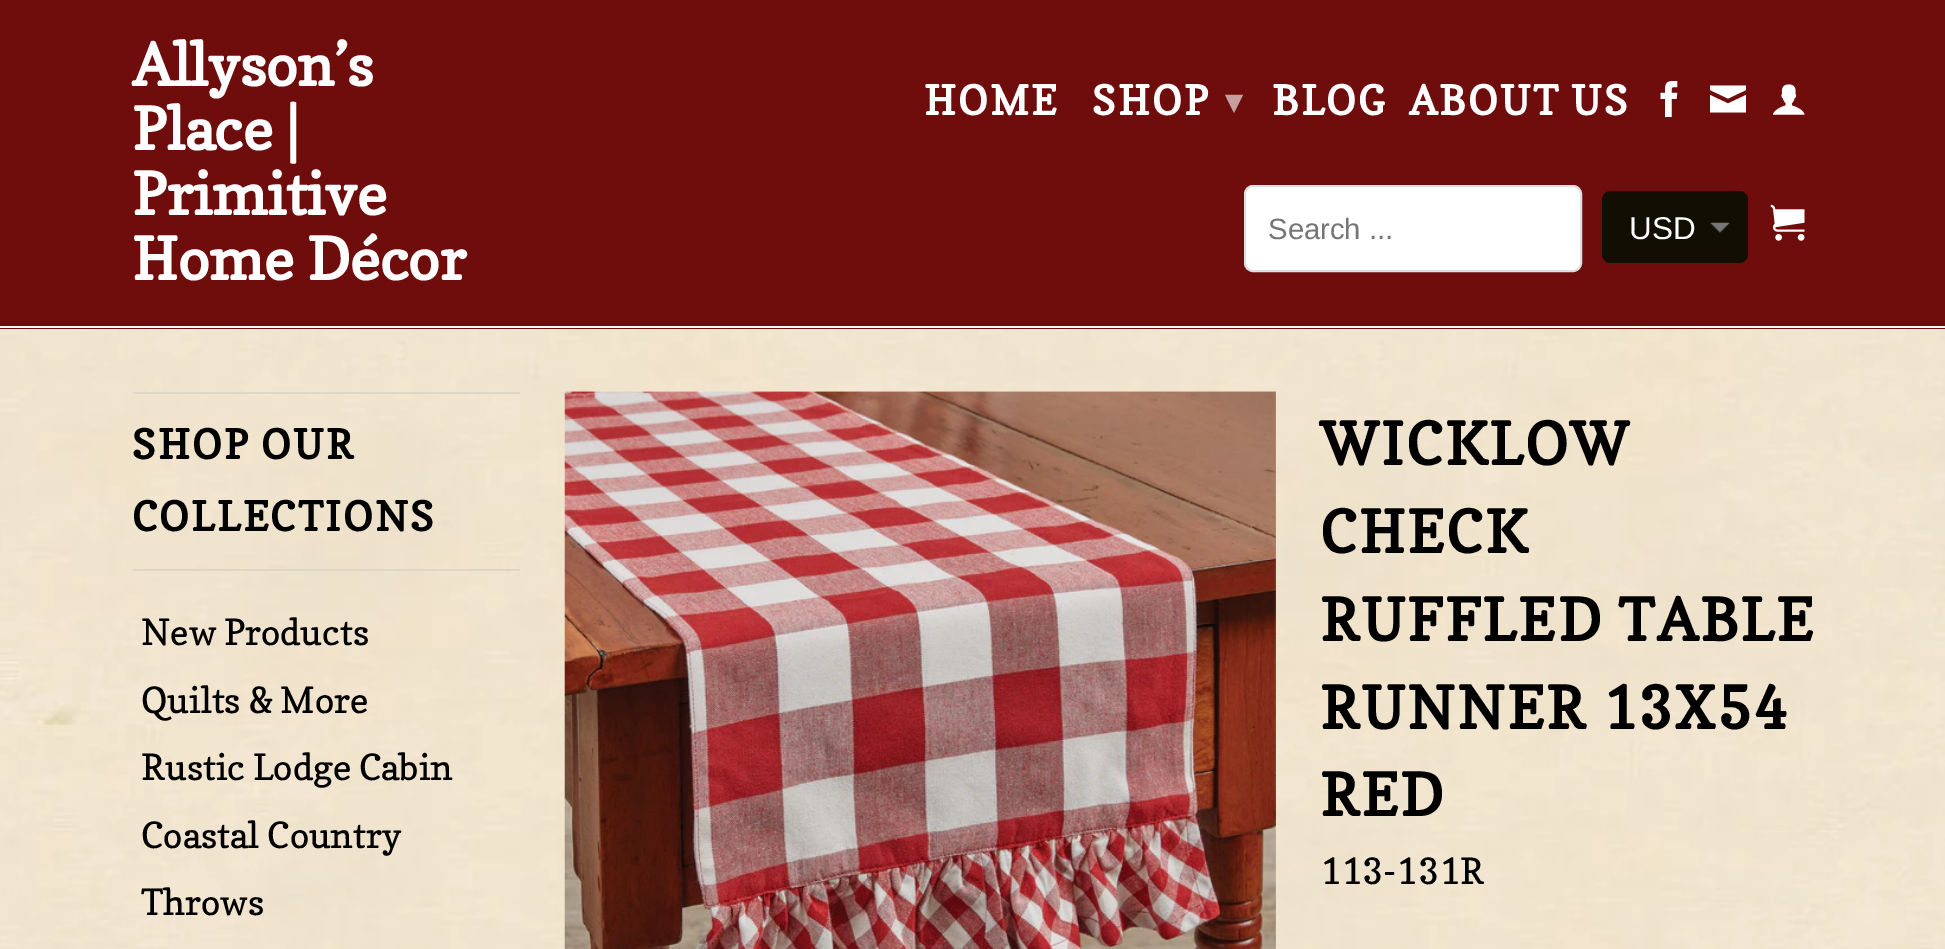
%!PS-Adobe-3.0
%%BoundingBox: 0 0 1945 949
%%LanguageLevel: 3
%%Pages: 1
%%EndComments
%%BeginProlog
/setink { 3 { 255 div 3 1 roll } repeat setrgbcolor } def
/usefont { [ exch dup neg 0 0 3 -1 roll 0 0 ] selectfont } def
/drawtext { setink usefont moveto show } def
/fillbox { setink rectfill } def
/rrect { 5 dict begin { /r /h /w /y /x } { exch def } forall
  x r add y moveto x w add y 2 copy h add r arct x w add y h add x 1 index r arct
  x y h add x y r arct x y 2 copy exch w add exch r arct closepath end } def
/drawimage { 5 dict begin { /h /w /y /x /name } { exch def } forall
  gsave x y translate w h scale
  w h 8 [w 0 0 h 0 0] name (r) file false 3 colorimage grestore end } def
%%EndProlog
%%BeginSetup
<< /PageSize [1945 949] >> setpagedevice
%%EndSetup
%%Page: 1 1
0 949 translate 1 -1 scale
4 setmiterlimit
0 0 1945 949 255 255 255 fillbox
(assets/img1.rgb) 0 329 1945 620 drawimage
0 0 1945 329 111 12 12 fillbox
0 326 1945 2 255 255 255 fillbox
(Allyson’s) 132 86 /Copse-Bold 58.5 255 255 255 drawtext
(Place |) 132 150 /Copse-Bold 58.5 255 255 255 drawtext
(Primitive) 132 215 /Copse-Bold 58.5 255 255 255 drawtext
(Home Décor) 132 280 /Copse-Bold 58.5 255 255 255 drawtext
/Copse-Bold 40.5 usefont
924 115 moveto 2.25 0 (HOME) ashow
1092 115 moveto 2.25 0 (SHOP) ashow
/DejaVuSans-Bold 34 usefont
197 158 158 setink
1225 113 moveto 2.25 0 (▾) ashow
/Copse-Bold 40.5 usefont
255 255 255 setink
1272 115 moveto 2.25 0 (BLOG) ashow
1409 115 moveto 2.25 0 (ABOUT US) ashow
(assets/img2.rgb) 1660 81 18 36 drawimage
1728 98.5 moveto 1710 90 lineto 1710 85.5 lineto 1746 85.5 lineto 1746 90 lineto closepath 1728 103.5 moveto 1746 95 lineto 1746 112.5 lineto 1710 112.5 lineto 1710 95 lineto closepath fill
(assets/img3.rgb) 1773 84 32 31 drawimage
1245 186 336 85 8 rrect gsave fill grestore
220 224 224 setink
2 setlinewidth
stroke
(Search ...) 1268 239 /LiberationSans-Regular 29.25 117 117 117 drawtext
18 14 4 setink
1602 191 146 72 9 rrect fill
(assets/img4.rgb) 1710 222 20 11 drawimage
(USD) 1629 239 /LiberationSans-Regular 31.5 255 255 255 drawtext
(assets/img5.rgb) 1770 204 35 37 drawimage
133 392 387 2 222 214 199 fillbox
133 569 387 2 222 214 199 fillbox
/Copse-Bold 40.5 usefont
0 0 0 setink
132 459 moveto 2.25 0 (SHOP OUR) ashow
132 531 moveto 2.25 0 (COLLECTIONS) ashow
(New Products) 141 645 /Copse-Regular 36 0 0 0 drawtext
(Quilts & More) 141 713 /Copse-Regular 36 0 0 0 drawtext
(Rustic Lodge Cabin) 141 780 /Copse-Regular 36 0 0 0 drawtext
(Coastal Country) 141 848 /Copse-Regular 36 0 0 0 drawtext
(Throws) 141 915 /Copse-Regular 36 0 0 0 drawtext
(assets/img6.rgb) 564 391 712 558 drawimage
/Copse-Bold 58.5 usefont
1320 465 moveto 2.25 0 (WICKLOW) ashow
1320 553 moveto 2.25 0 (CHECK) ashow
1320 641 moveto 2.25 0 (RUFFLED TABLE) ashow
1320 729 moveto 2.25 0 (RUNNER 13X54) ashow
1320 816 moveto 2.25 0 (RED) ashow
(113-131R) 1320 884 /Copse-Regular 36 0 0 0 drawtext
showpage
%%EOF
